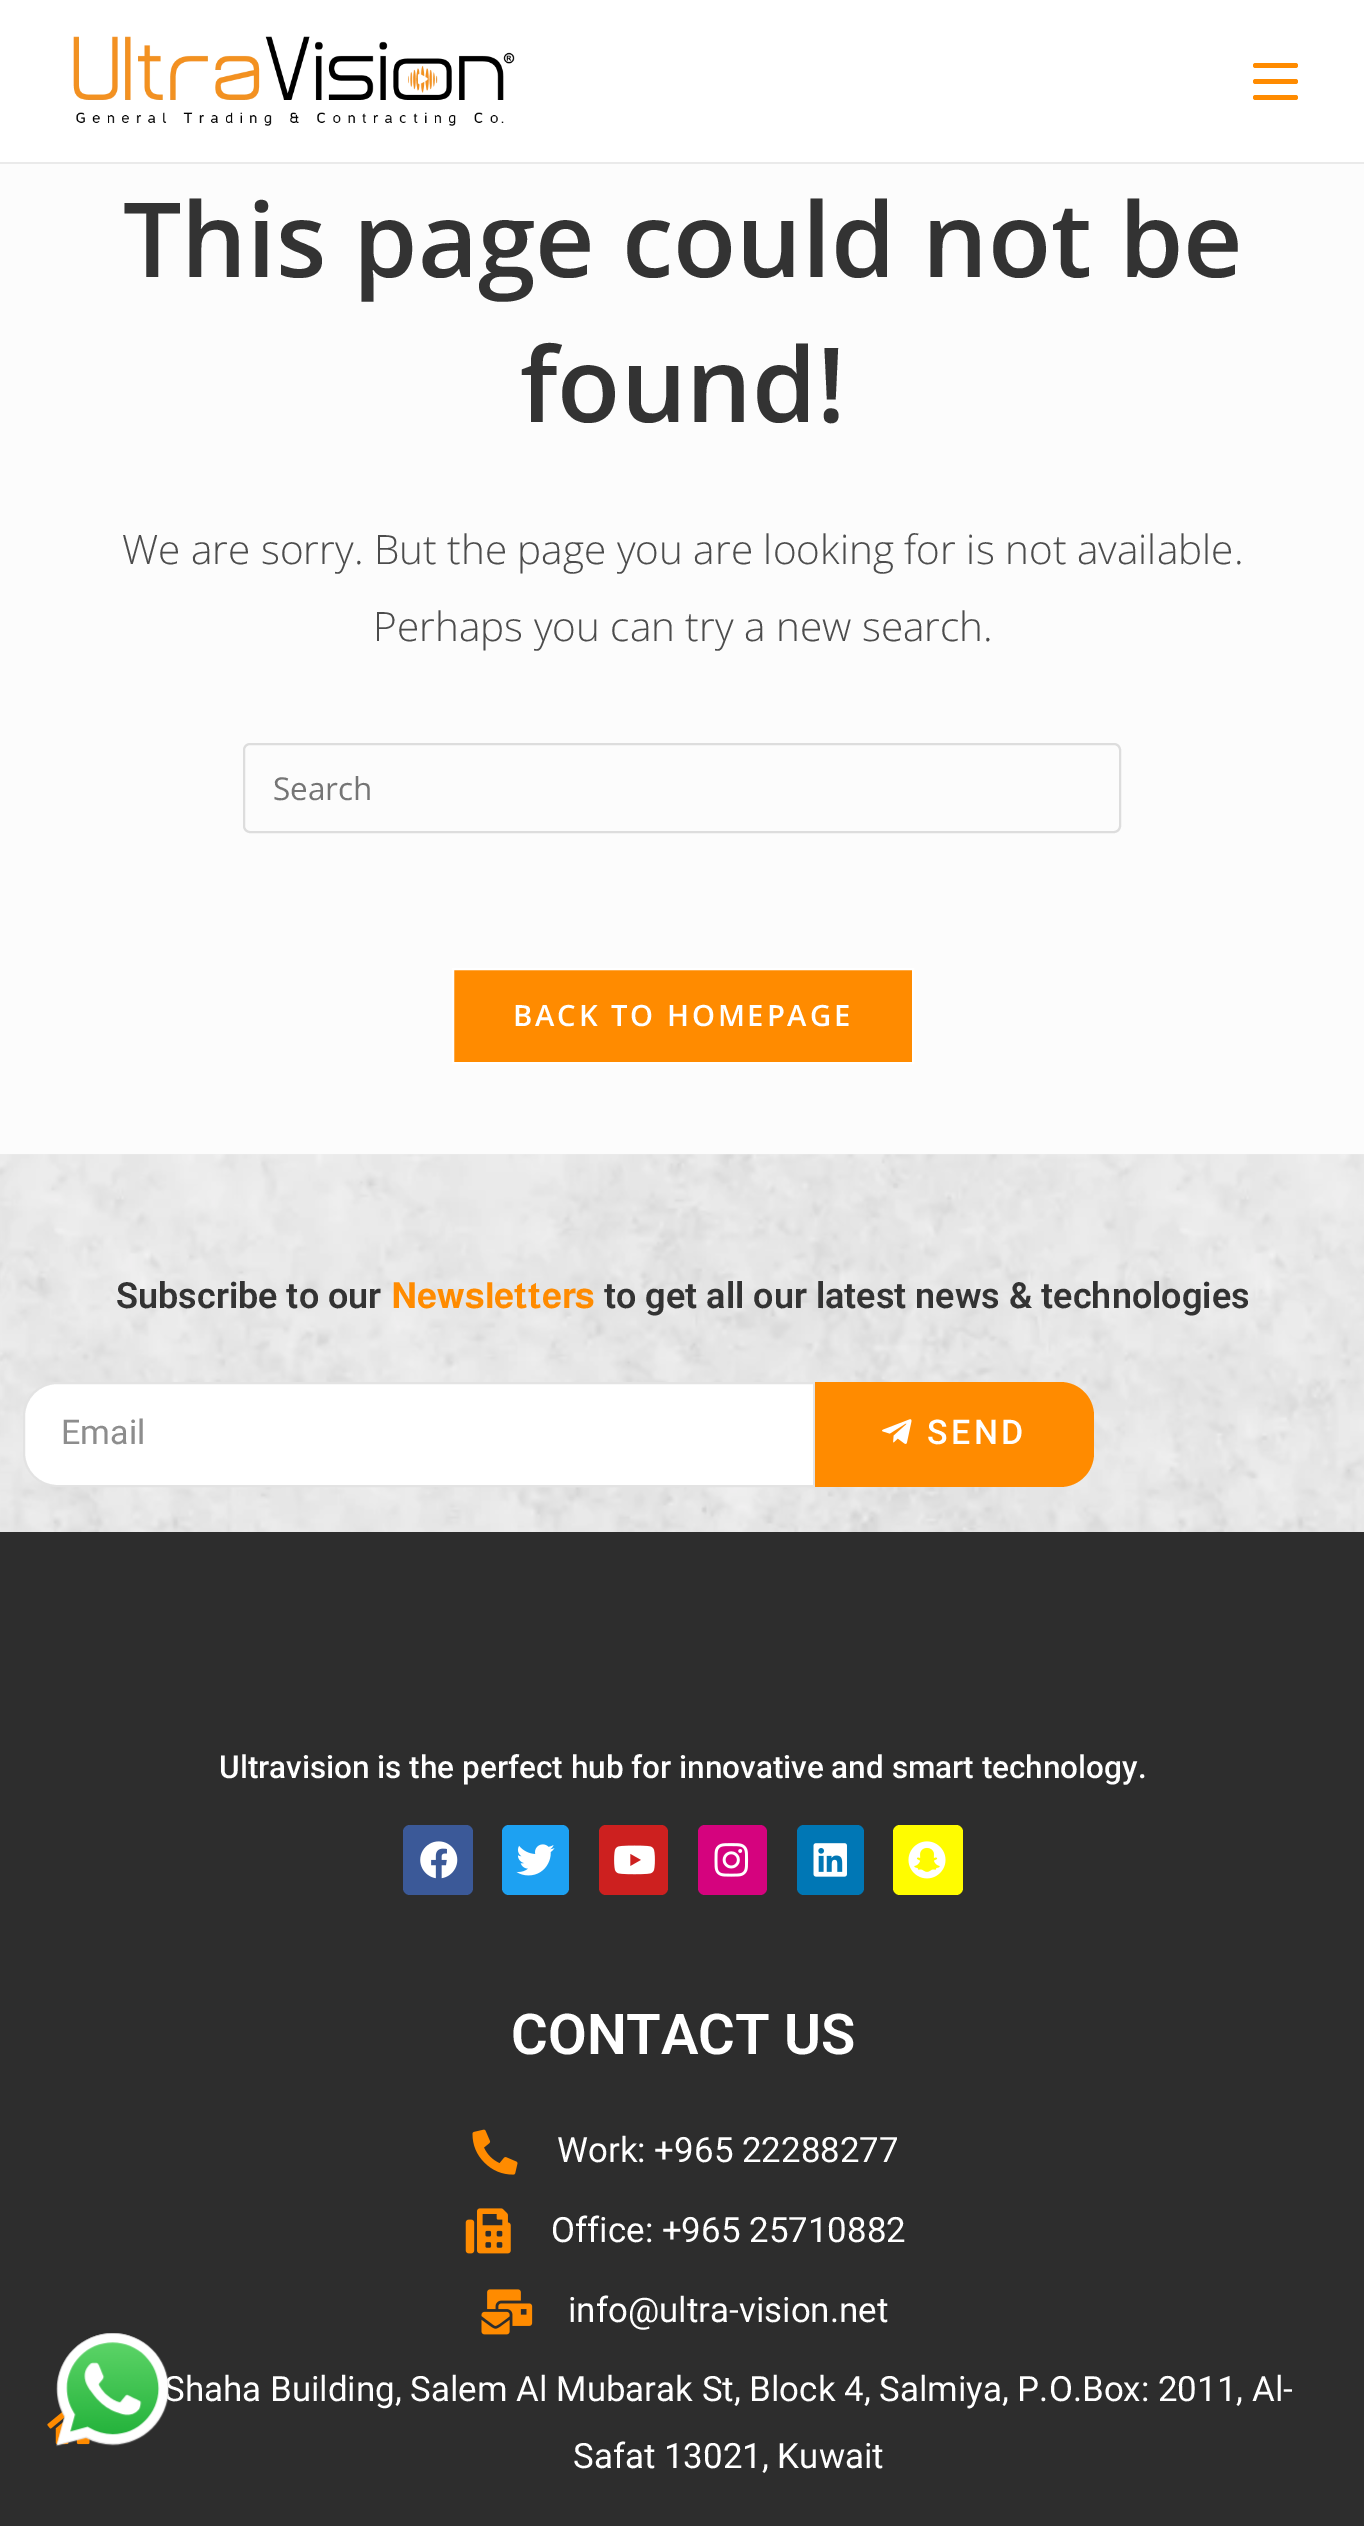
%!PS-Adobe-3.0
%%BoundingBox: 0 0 1364 2526
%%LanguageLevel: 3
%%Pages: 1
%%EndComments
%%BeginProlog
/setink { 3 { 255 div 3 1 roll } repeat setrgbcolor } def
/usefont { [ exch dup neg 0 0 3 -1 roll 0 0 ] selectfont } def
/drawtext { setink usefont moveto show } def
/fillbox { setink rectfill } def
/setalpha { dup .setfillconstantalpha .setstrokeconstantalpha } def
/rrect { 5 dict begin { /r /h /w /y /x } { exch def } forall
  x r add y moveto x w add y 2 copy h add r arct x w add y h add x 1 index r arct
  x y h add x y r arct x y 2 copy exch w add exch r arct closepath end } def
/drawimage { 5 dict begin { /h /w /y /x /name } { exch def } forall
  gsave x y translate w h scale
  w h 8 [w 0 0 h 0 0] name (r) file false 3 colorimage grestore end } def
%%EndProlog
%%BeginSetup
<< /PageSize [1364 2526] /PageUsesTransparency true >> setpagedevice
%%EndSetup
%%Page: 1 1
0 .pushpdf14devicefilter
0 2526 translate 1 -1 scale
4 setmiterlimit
0 0 1364 2526 252 252 252 fillbox
0 0 1364 162 255 255 255 fillbox
0 162 1364 2 234 234 234 fillbox
(assets/img1.rgb) 73 36 442 90 drawimage
255 139 0 setink
1253 79 45 5 2.5 rrect fill
1253 63 45 5 2.5 rrect fill
1253 95 45 5 2.5 rrect fill
(This page could not be) 123 277 /OpenSans-SemiBold 103.5 51 51 51 drawtext
(found!) 520 422 /OpenSans-SemiBold 103.5 51 51 51 drawtext
(We are sorry. But the page you are looking for is not available.) 122 564 /OpenSans-Light 40.5 76 76 76 drawtext
(Perhaps you can try a new search.) 373 641 /OpenSans-Light 40.5 76 76 76 drawtext
221 221 221 setink
2 setlinewidth
244 744 876 88 6 rrect stroke
(Search) 273 800 /OpenSans-Regular 31.5 117 117 117 drawtext
255 139 0 setink
453 969 moveto 913 969 lineto 913 1063 lineto 453 1063 lineto closepath gsave fill grestore
255 255 255 setink
stroke
/OpenSans-SemiBold 29.25 usefont
513 1026 moveto 2.9 0 (BACK TO HOMEPAGE) ashow
(assets/img2.rgb) 0 1154 1364 379 drawimage
(Subscribe to our) 116 1308 /Roboto-SemiBold 36 51 51 51 drawtext
(Newsletters) 391 1308 /Almarai-Bold 36 255 139 0 drawtext
(to get all our latest news & technologies) 604 1308 /Roboto-SemiBold 36 51 51 51 drawtext
255 255 255 setink
57 1383 moveto 814 1383 lineto 814 1486 lineto 57 1486 lineto 39 1486 24 1471 24 1453 curveto 24 1416 lineto 24 1398 39 1383 57 1383 curveto closepath gsave fill grestore
227 227 227 setink
stroke
(Email) 61 1444 /Roboto-Regular 34 141 141 141 drawtext
255 139 0 setink
815 1382 moveto 1060 1382 lineto 1079 1382 1094 1397 1094 1416 curveto 1094 1453 lineto 1094 1472 1079 1487 1060 1487 curveto 815 1487 lineto closepath fill
(assets/img3.rgb) 882 1419 30 25 drawimage
/Roboto-Medium 34 usefont
255 255 255 setink
927 1444 moveto 3.5 0 (SEND) ashow
0.82 setalpha
0 1532 1364 994 0 0 0 fillbox
1 setalpha
(Ultravision is the perfect hub for innovative and smart technology.) 219 1778 /Roboto-Medium 31.5 255 255 255 drawtext
59 89 152 setink
403 1825 70 70 7 rrect fill
(assets/img4.rgb) 420 1841 38 38 drawimage
29 161 242 setink
502 1825 67 70 7 rrect fill
(assets/img5.rgb) 516 1844 39 32 drawimage
205 32 31 setink
599 1825 69 70 7 rrect fill
(assets/img6.rgb) 614 1845 41 30 drawimage
213 3 126 setink
698 1825 69 70 7 rrect fill
(assets/img7.rgb) 714 1843 35 34 drawimage
0 119 181 setink
797 1825 67 70 7 rrect fill
(assets/img8.rgb) 813 1843 34 34 drawimage
255 252 0 setink
893 1825 70 70 7 rrect fill
(assets/img9.rgb) 908 1841 38 38 drawimage
(CONTACT US) 511 2054 /Roboto-SemiBold 56.25 255 255 255 drawtext
(assets/img10.rgb) 472 2129 46 46 drawimage
(Work: +965 22288277) 557 2162 /Roboto-Regular 34.9 255 255 255 drawtext
(assets/img11.rgb) 465 2208 46 46 drawimage
(Office: +965 25710882) 551 2242 /Roboto-Regular 34.9 255 255 255 drawtext
(assets/img12.rgb) 481 2289 52 46 drawimage
(info@ultra-vision.net) 568 2322 /Roboto-Regular 34.9 255 255 255 drawtext
(assets/img13.rgb) 47 2411 43 34 drawimage
(Shaha Building, Salem Al Mubarak St, Block 4, Salmiya, P.O.Box: 2011, Al-) 164 2401 /Roboto-Regular 34.9 255 255 255 drawtext
(Safat 13021, Kuwait) 573 2468 /Roboto-Regular 34.9 255 255 255 drawtext
(assets/img14.rgb) 56 2333 114 114 drawimage
.poppdf14devicefilter showpage
%%EOF
